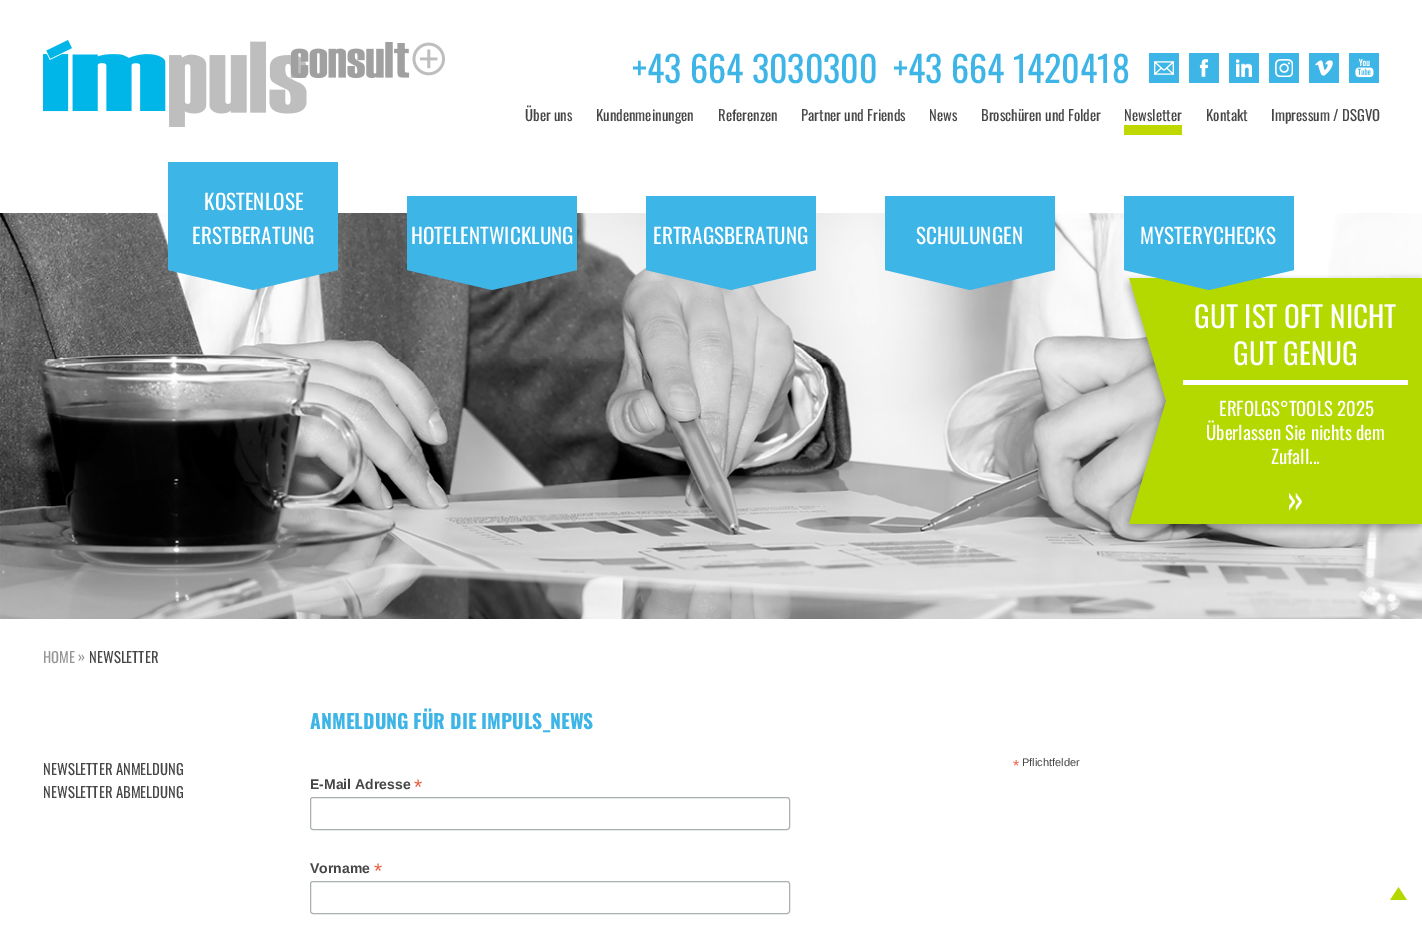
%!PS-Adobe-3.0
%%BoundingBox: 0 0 1422 934
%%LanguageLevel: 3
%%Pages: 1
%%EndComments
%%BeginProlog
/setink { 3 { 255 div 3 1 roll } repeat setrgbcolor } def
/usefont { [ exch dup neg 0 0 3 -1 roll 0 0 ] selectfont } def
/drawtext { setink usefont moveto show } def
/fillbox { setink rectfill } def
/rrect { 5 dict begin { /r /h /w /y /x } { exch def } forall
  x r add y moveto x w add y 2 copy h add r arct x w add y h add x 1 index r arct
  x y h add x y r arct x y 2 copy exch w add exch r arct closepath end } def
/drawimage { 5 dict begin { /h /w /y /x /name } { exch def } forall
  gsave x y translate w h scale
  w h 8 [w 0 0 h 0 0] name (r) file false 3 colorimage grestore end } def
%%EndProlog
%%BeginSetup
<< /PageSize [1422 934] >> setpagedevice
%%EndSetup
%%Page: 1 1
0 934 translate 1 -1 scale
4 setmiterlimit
0 0 1422 934 255 255 255 fillbox
(assets/img1.rgb) 43 40 402 87 drawimage
(+43 664 3030300) 632 83 /Oswald-Regular 36 61 181 230 drawtext
(+43 664 1420418) 893 83 /Oswald-Regular 36 61 181 230 drawtext
1149 53 30 30 61 181 230 fillbox
(assets/img2.rgb) 1154 61 20 14 drawimage
1189 53 30 30 61 181 230 fillbox
(assets/img3.rgb) 1199 59 10 18 drawimage
1229 53 30 30 61 181 230 fillbox
(assets/img4.rgb) 1236 59 16 18 drawimage
1269 53 30 30 61 181 230 fillbox
(assets/img5.rgb) 1275 59 18 18 drawimage
1309 53 30 30 61 181 230 fillbox
(assets/img6.rgb) 1315 60 18 16 drawimage
1349 53 30 30 61 181 230 fillbox
(assets/img7.rgb) 1355 58 19 20 drawimage
(Über uns) 525 121 /Oswald-Regular 14.75 70 70 70 drawtext
(Kundenmeinungen) 596 121 /Oswald-Regular 14.75 70 70 70 drawtext
(Referenzen) 718 121 /Oswald-Regular 14.75 70 70 70 drawtext
(Partner und Friends) 801 121 /Oswald-Regular 14.75 70 70 70 drawtext
(News) 929 121 /Oswald-Regular 14.75 70 70 70 drawtext
(Broschüren und Folder) 981 121 /Oswald-Regular 14.75 70 70 70 drawtext
(Newsletter) 1124 121 /Oswald-Regular 14.75 70 70 70 drawtext
1124 125 58 10 190 216 0 fillbox
(Kontakt) 1206 121 /Oswald-Regular 14.75 70 70 70 drawtext
(Impressum / DSGVO) 1271 121 /Oswald-Regular 14.75 70 70 70 drawtext
(assets/img8.rgb) 0 213 1422 406 drawimage
168 162 170 108 61 181 230 fillbox
(KOSTENLOSE) 204 210 /Oswald-Regular 21.25 255 255 255 drawtext
(ERSTBERATUNG) 192 244 /Oswald-Regular 21.25 255 255 255 drawtext
61 181 230 setink
168 270 moveto 338 270 lineto 253 290 lineto closepath fill
407 196 170 74 61 181 230 fillbox
(HOTELENTWICKLUNG) 411 244 /Oswald-Regular 21.25 255 255 255 drawtext
61 181 230 setink
407 270 moveto 577 270 lineto 492 290 lineto closepath fill
646 196 170 74 61 181 230 fillbox
(ERTRAGSBERATUNG) 653 244 /Oswald-Regular 21.25 255 255 255 drawtext
61 181 230 setink
646 270 moveto 816 270 lineto 731 290 lineto closepath fill
885 196 170 74 61 181 230 fillbox
(SCHULUNGEN) 916 244 /Oswald-Regular 21.25 255 255 255 drawtext
61 181 230 setink
885 270 moveto 1055 270 lineto 970 290 lineto closepath fill
1124 196 170 74 61 181 230 fillbox
(MYSTERYCHECKS) 1140 244 /Oswald-Regular 21.25 255 255 255 drawtext
(assets/img9.rgb) 1123 275 299 258 drawimage
61 181 230 setink
1124 270 moveto 1294 270 lineto 1209 290 lineto closepath fill
(GUT IST OFT NICHT) 1194 328 /Oswald-Regular 29.25 255 255 255 drawtext
(GUT GENUG) 1233 365 /Oswald-Regular 29.25 255 255 255 drawtext
1183 380 225 5 255 255 255 fillbox
(ERFOLGS°TOOLS 2025) 1219 416 /Oswald-Regular 18.75 255 255 255 drawtext
(Überlassen Sie nichts dem) 1206 440 /Oswald-Regular 18.75 255 255 255 drawtext
(Zufall...) 1271 464 /Oswald-Regular 18.75 255 255 255 drawtext
(») 1287 512 /Oswald-Regular 35 255 255 255 drawtext
(HOME) 43 663 /Oswald-Regular 14.75 150 150 150 drawtext
(») 78 662 /Oswald-Regular 14.75 150 150 150 drawtext
(NEWSLETTER) 89 663 /Oswald-Regular 14.75 70 70 70 drawtext
(NEWSLETTER ANMELDUNG) 43 775 /Oswald-Regular 14.75 70 70 70 drawtext
(NEWSLETTER ABMELDUNG) 43 798 /Oswald-Regular 14.75 70 70 70 drawtext
(ANMELDUNG FÜR DIE IMPULS_NEWS) 310 729 /Oswald-Bold 19.6 61 181 230 drawtext
(*) 1013 771 /LiberationSans-Regular 16 232 92 65 drawtext
(Pflichtfelder) 1022 766 /LiberationSans-Regular 11 70 70 70 drawtext
(E-Mail Adresse) 310 789 /LiberationSans-Bold 14 70 70 70 drawtext
(*) 414 794 /LiberationSans-Regular 21 232 92 65 drawtext
171 176 178 setink
310.5 797.5 479 32 2.5 rrect stroke
(Vorname) 310 873 /LiberationSans-Bold 14 70 70 70 drawtext
(*) 374 878 /LiberationSans-Regular 21 232 92 65 drawtext
171 176 178 setink
310.5 881.5 479 32 2.5 rrect stroke
(assets/img10.rgb) 1390 887 17 13 drawimage
showpage
%%EOF
